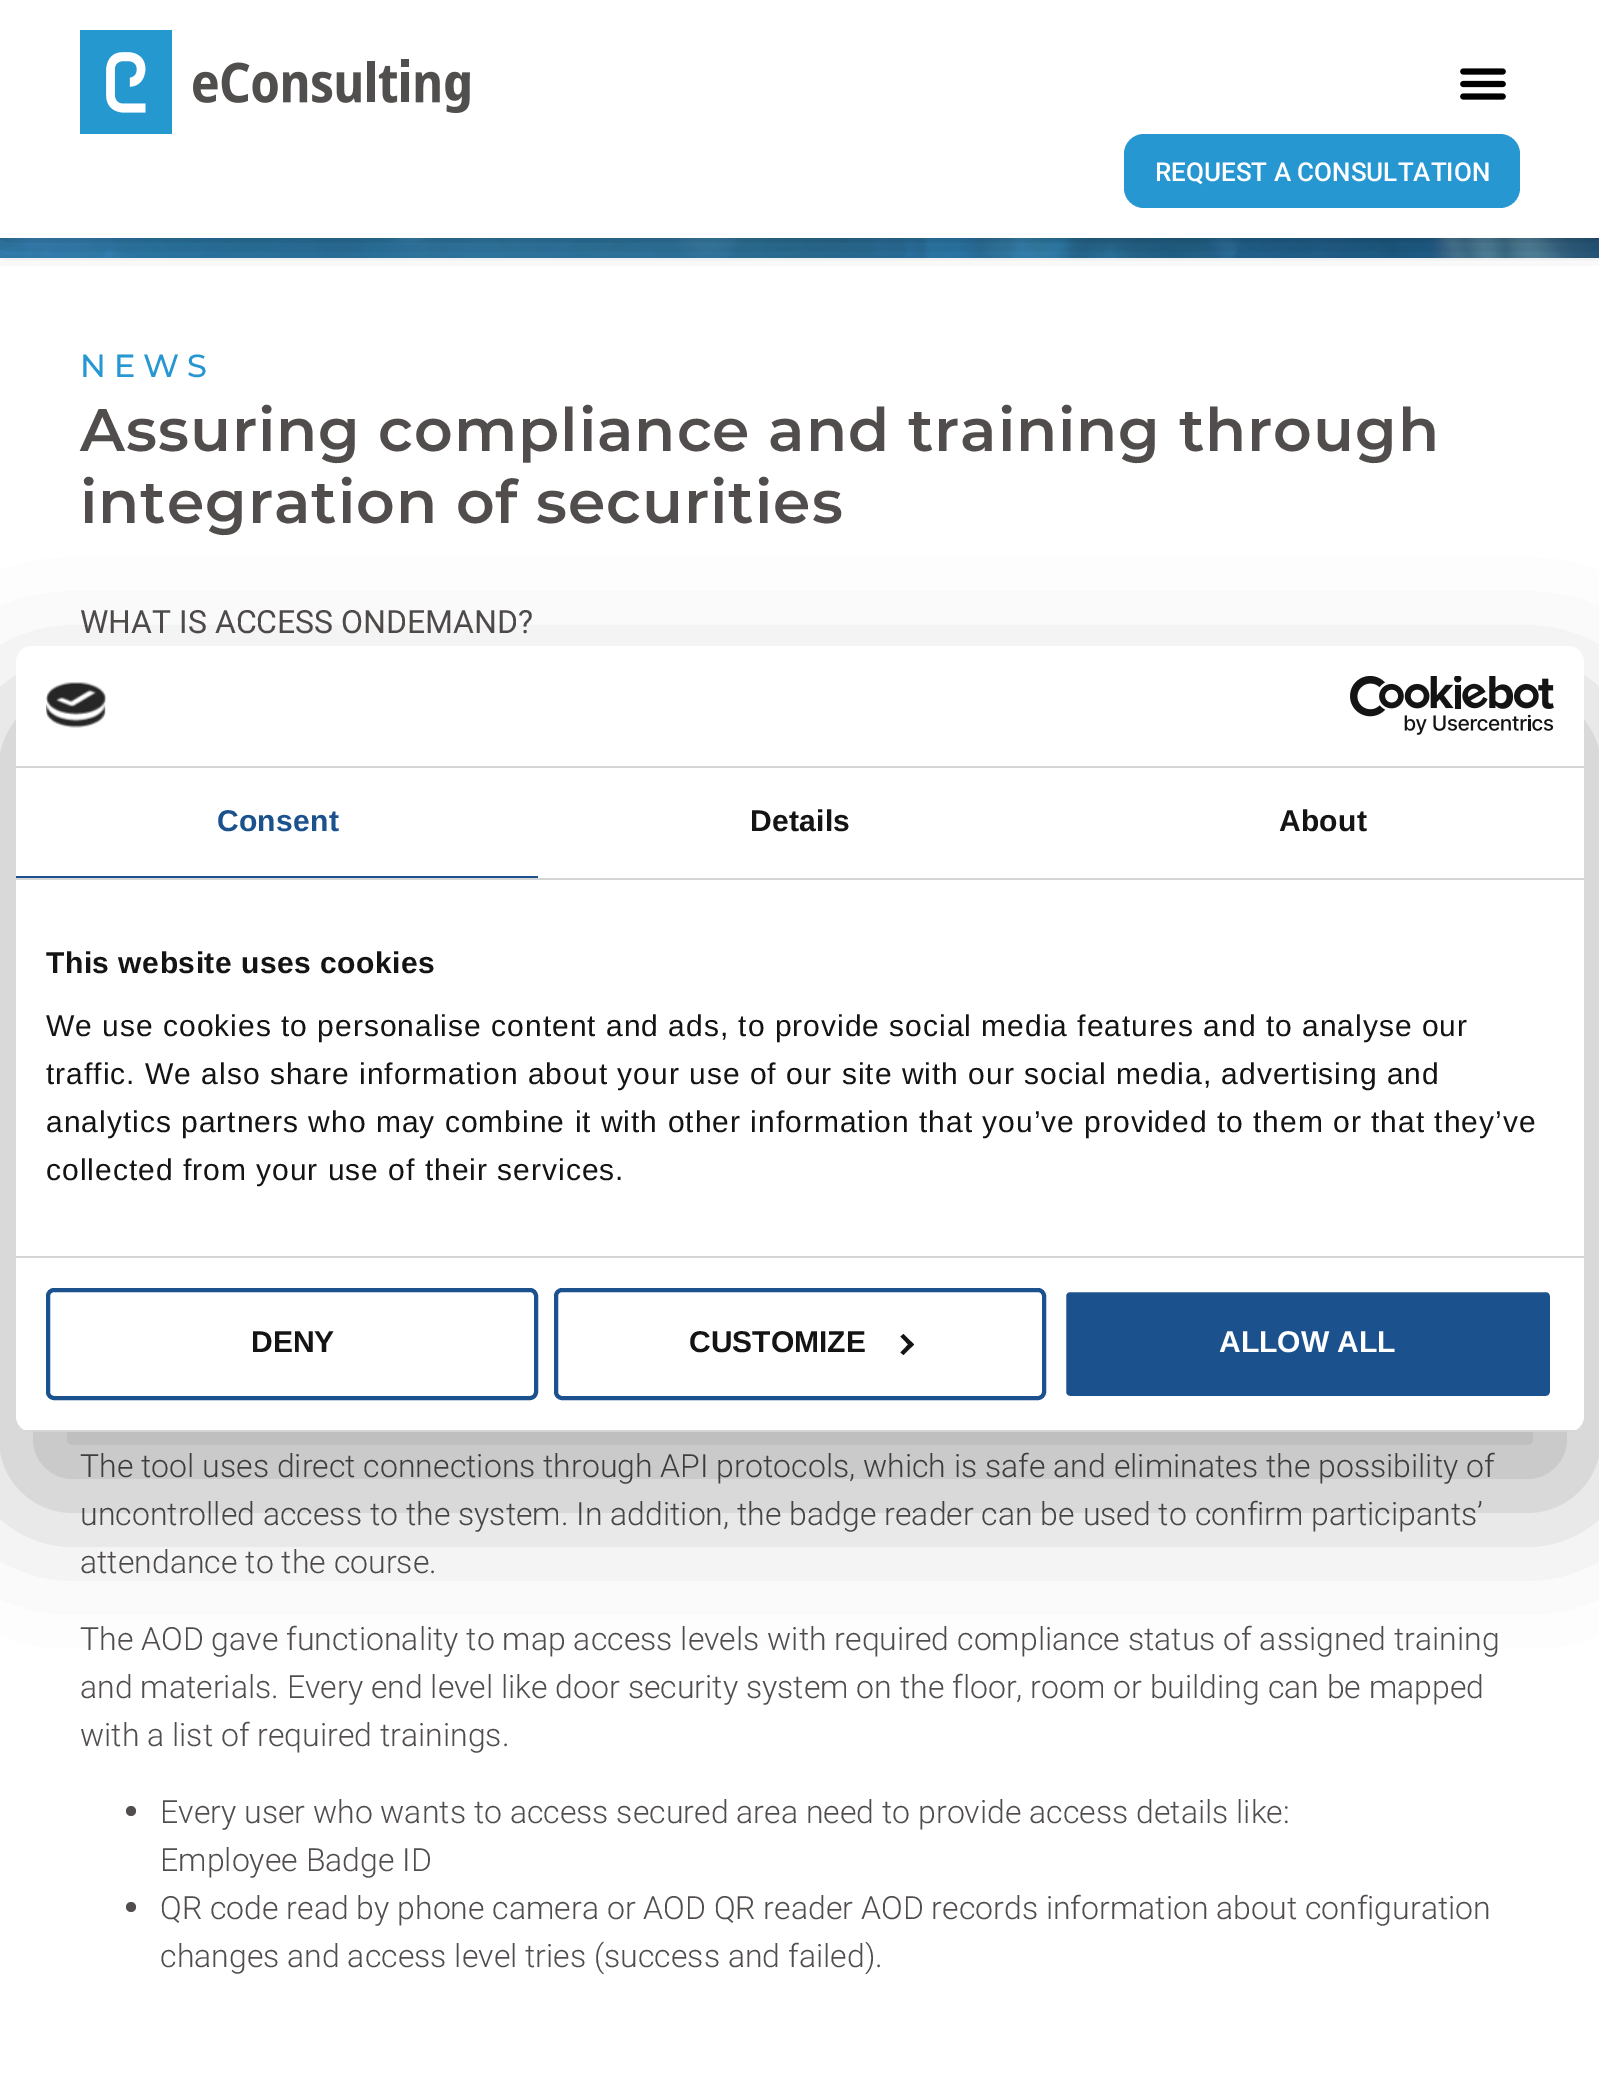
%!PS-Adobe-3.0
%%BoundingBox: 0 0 1599 2075
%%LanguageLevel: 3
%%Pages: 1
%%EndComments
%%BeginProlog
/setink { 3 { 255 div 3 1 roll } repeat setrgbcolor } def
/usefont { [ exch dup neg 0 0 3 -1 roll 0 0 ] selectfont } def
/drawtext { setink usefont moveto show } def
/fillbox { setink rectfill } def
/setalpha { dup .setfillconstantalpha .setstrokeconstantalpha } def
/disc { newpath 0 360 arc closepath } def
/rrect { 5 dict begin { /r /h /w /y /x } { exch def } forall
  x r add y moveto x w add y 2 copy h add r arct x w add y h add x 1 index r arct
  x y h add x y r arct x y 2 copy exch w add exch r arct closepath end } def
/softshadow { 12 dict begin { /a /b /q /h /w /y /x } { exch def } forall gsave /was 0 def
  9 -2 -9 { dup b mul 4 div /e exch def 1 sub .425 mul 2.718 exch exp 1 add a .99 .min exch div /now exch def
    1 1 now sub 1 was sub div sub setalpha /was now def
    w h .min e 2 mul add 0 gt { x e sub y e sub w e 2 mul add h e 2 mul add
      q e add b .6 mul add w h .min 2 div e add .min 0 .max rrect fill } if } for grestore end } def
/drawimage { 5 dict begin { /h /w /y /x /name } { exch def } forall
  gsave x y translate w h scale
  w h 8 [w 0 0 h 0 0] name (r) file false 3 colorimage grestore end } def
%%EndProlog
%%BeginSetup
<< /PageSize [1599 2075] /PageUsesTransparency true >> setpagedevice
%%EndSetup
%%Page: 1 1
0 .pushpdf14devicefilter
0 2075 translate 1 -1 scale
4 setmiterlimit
0 0 1599 2075 255 255 255 fillbox
gsave 0 238 moveto 1599 238 lineto 1599 258 lineto 0 258 lineto closepath clip newpath
<< /ShadingType 2 /ColorSpace /DeviceRGB /Coords [22 385 1578 111] /Extend [true true] /Function << /FunctionType 2 /Domain [0 1] /C0 [0.153 0.592 0.824] /C1 [0.09 0.424 0.6] /N 1 >> >> shfill grestore
(assets/img3.rgb) 0 238 1599 20 drawimage
gsave
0 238 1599 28 rectclip
0 0 0 setink
0 0 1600 238 0 18 0.32 softshadow
grestore
(assets/img1.rgb) 80 30 390 104 drawimage
(assets/img2.rgb) 1460 68 46 32 drawimage
39 151 210 setink
1124 134 396 74 20 rrect fill
(REQUEST A CONSULTATION) 1155 181 /Roboto-Medium 26 255 255 255 drawtext
/Montserrat-Medium 32 usefont
39 151 210 setink
80 377 moveto 8 0 (NEWS) ashow
/Montserrat-SemiBold 60 usefont
80 77 76 setink
80 451 moveto 1 0 (Assuring compliance and training through) ashow
80 523 moveto 1 0 (integration of securities) ashow
(WHAT IS ACCESS ONDEMAND?) 80 633 /Roboto-Regular 32 80 77 76 drawtext
(The tool uses direct connections through API protocols, which is safe and eliminates the possibility of) 80 1477 /Roboto-Light 32 80 77 76 drawtext
(uncontrolled access to the system. In addition, the badge reader can be used to confirm participants’) 80 1525 /Roboto-Light 32 80 77 76 drawtext
(attendance to the course.) 80 1573 /Roboto-Light 32 80 77 76 drawtext
(The AOD gave functionality to map access levels with required compliance status of assigned training) 80 1650 /Roboto-Light 32 80 77 76 drawtext
(and materials. Every end level like door security system on the floor, room or building can be mapped) 80 1698 /Roboto-Light 32 80 77 76 drawtext
(with a list of required trainings.) 80 1746 /Roboto-Light 32 80 77 76 drawtext
131 1811 5 disc fill
(Every user who wants to access secured area need to provide access details like:) 160 1823 /Roboto-Light 32 80 77 76 drawtext
(Employee Badge ID) 160 1871 /Roboto-Light 32 80 77 76 drawtext
131 1907 5 disc fill
(QR code read by phone camera or AOD QR reader AOD records information about configuration) 160 1919 /Roboto-Light 32 80 77 76 drawtext
(changes and access level tries \(success and failed\).) 160 1967 /Roboto-Light 32 80 77 76 drawtext
0 0 0 setink
16 710 1568 786 16 68 0.3 softshadow
255 255 255 setink
16 646 1568 786 16 rrect fill
16 766 1568 2 214 214 214 fillbox
(assets/img4.rgb) 46 682 60 46 drawimage
(assets/img5.rgb) 1350 676 204 59 drawimage
16 878 1568 2 214 214 214 fillbox
16 876 522 2 27 82 141 fillbox
/LiberationSans-Bold 30 usefont
217 831 moveto 0.25 0 (Consent) ashow
20 20 20 setink
750 831 moveto 0.25 0 (Details) ashow
1279 831 moveto 0.25 0 (About) ashow
16 1256 1568 2 214 214 214 fillbox
20 20 20 setink
46 973 moveto 0.5 0 (This website uses cookies) ashow
/LiberationSans-Regular 30 usefont
46 1036 moveto 1 0 (We use cookies to personalise content and ads, to provide social media features and to analyse our) ashow
46 1084 moveto 1 0 (traffic. We also share information about your use of our site with our social media, advertising and) ashow
46 1132 moveto 1 0 (analytics partners who may combine it with other information that you’ve provided to them or that they’ve) ashow
46 1180 moveto 1 0 (collected from your use of their services.) ashow
gsave
16 646 1568 786 16 rrect clip newpath
16 1430 1568 2 214 214 214 fillbox
grestore
27 82 141 setink
4 setlinewidth
48 1290 488 108 6 rrect stroke
(DENY) 251 1352 /LiberationSans-Bold 30 20 20 20 drawtext
27 82 141 setink
556 1290 488 108 6 rrect stroke
(CUSTOMIZE) 689 1352 /LiberationSans-Bold 30 20 20 20 drawtext
903.5 1334 moveto 914 1344.5 lineto 911 1347.5 lineto 900.5 1336.5 lineto closepath fill
911 1341.5 moveto 914 1344.5 lineto 903.5 1355 lineto 900.5 1352.5 lineto closepath fill
27 82 141 setink
1064 1290 488 108 6 rrect gsave fill grestore
255 255 255 setink
stroke
(ALLOW ALL) 1219 1352 /LiberationSans-Bold 30 255 255 255 drawtext
.poppdf14devicefilter showpage
%%EOF
